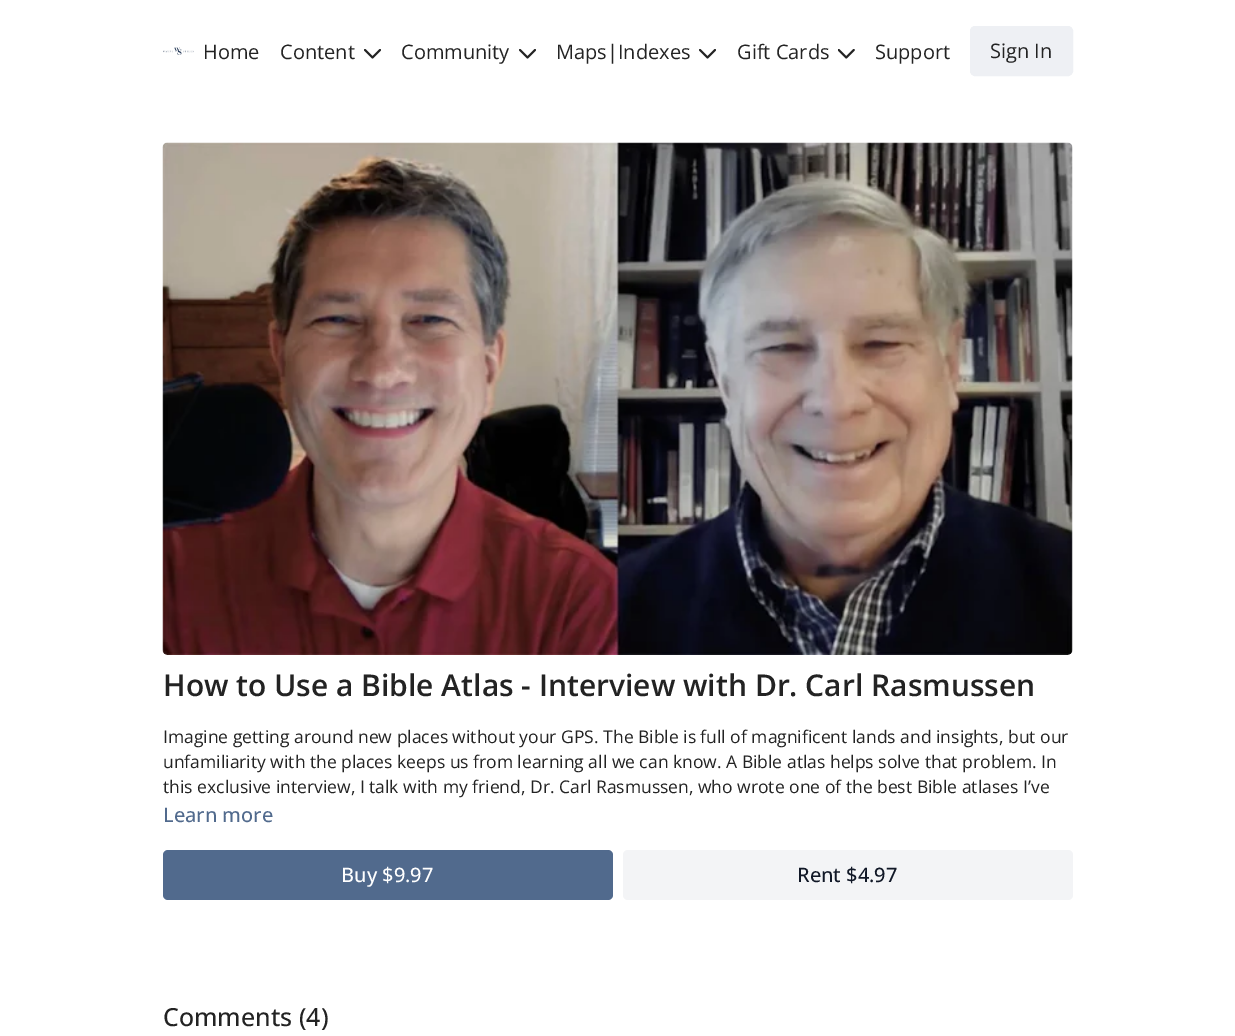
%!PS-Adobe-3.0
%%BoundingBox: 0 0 1235 1036
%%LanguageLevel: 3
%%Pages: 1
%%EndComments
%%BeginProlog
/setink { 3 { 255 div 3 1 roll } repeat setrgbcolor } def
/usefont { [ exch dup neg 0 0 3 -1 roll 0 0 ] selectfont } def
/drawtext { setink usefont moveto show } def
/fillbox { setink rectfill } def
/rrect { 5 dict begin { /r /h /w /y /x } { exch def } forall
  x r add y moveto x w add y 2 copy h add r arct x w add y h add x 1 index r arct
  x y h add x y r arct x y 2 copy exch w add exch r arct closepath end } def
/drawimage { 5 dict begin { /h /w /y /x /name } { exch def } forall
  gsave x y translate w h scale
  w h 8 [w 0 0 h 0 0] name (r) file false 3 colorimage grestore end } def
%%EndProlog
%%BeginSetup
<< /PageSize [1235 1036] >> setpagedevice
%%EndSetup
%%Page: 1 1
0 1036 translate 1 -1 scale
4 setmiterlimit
0 0 1235 1036 255 255 255 fillbox
(assets/img1.rgb) 163 47 31 8 drawimage
(Home) 203 59 /OpenSans-Regular 20 35 35 35 drawtext
(Content) 280 59 /OpenSans-Regular 20 35 35 35 drawtext
(assets/img2.rgb) 364 49 17 10 drawimage
(Community) 401 59 /OpenSans-Regular 20 35 35 35 drawtext
(assets/img2.rgb) 519 49 17 10 drawimage
(Maps|Indexes) 556 59 /OpenSans-Regular 20 35 35 35 drawtext
(assets/img2.rgb) 699 49 17 10 drawimage
(Gift Cards) 737 59 /OpenSans-Regular 20 35 35 35 drawtext
(assets/img3.rgb) 838 49 17 10 drawimage
(Support) 875 59 /OpenSans-Regular 20 35 35 35 drawtext
238 240 244 setink
970.5 26.5 102 49 4.5 rrect gsave fill grestore
stroke
(Sign In) 990 58 /OpenSans-Regular 20 35 35 35 drawtext
(assets/img4.rgb) 162 142 911 513 drawimage
(How to Use a Bible Atlas - Interview with Dr. Carl Rasmussen) 163 696 /OpenSans-SemiBold 30 35 35 35 drawtext
(Imagine getting around new places without your GPS. The Bible is full of magnificent lands and insights, but our) 163 743 /OpenSans-Regular 17.5 35 35 35 drawtext
(unfamiliarity with the places keeps us from learning all we can know. A Bible atlas helps solve that problem. In) 163 768 /OpenSans-Regular 17.5 35 35 35 drawtext
(this exclusive interview, I talk with my friend, Dr. Carl Rasmussen, who wrote one of the best Bible atlases I’ve) 163 793 /OpenSans-Regular 17.5 35 35 35 drawtext
(Learn more) 163 822 /OpenSans-Medium 20 81 106 141 drawtext
163 850 450 50 5 rrect fill
(Buy $9.97) 341 882 /OpenSans-Medium 20 255 255 255 drawtext
243 244 246 setink
623 850 450 50 5 rrect fill
(Rent $4.97) 797 882 /OpenSans-Medium 20 17 24 39 drawtext
(Comments \(4\)) 163 1026 /OpenSans-Medium 25 35 35 35 drawtext
showpage
%%EOF
